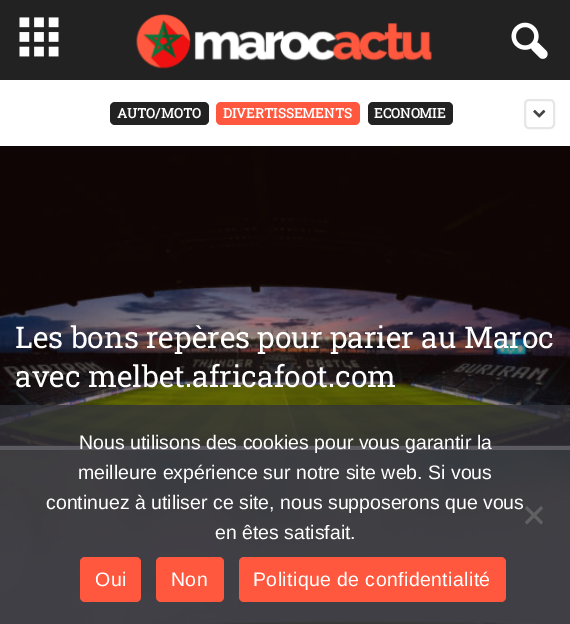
%!PS-Adobe-3.0
%%BoundingBox: 0 0 570 624
%%LanguageLevel: 3
%%Pages: 1
%%EndComments
%%BeginProlog
/setink { 3 { 255 div 3 1 roll } repeat setrgbcolor } def
/usefont { [ exch dup neg 0 0 3 -1 roll 0 0 ] selectfont } def
/drawtext { setink usefont moveto show } def
/fillbox { setink rectfill } def
/setalpha { dup .setfillconstantalpha .setstrokeconstantalpha } def
/rrect { 5 dict begin { /r /h /w /y /x } { exch def } forall
  x r add y moveto x w add y 2 copy h add r arct x w add y h add x 1 index r arct
  x y h add x y r arct x y 2 copy exch w add exch r arct closepath end } def
/drawimage { 5 dict begin { /h /w /y /x /name } { exch def } forall
  gsave x y translate w h scale
  w h 8 [w 0 0 h 0 0] name (r) file false 3 colorimage grestore end } def
%%EndProlog
%%BeginSetup
<< /PageSize [570 624] /PageUsesTransparency true >> setpagedevice
%%EndSetup
%%Page: 1 1
0 .pushpdf14devicefilter
0 624 translate 1 -1 scale
4 setmiterlimit
0 0 570 624 34 34 34 fillbox
(assets/img1.rgb) 19 17 40 40 drawimage
(assets/img2.rgb) 136 14 296 55 drawimage
(assets/img3.rgb) 511 22 37 37 drawimage
0 80 570 66 255 255 255 fillbox
34 34 34 setink
110 102 99 23 5 rrect fill
(AUTO/MOTO) 117 118 /RobotoSlab-Bold 13.5 255 255 255 drawtext
255 88 62 setink
216 102 144 23 5 rrect fill
(DIVERTISSEMENTS) 223 118 /RobotoSlab-Bold 13.5 255 255 255 drawtext
34 34 34 setink
368 102 85 23 5 rrect fill
(ECONOMIE) 374 118 /RobotoSlab-Bold 13.5 255 255 255 drawtext
230 230 230 setink
2 setlinewidth
525 100 29 28 4 rrect stroke
(assets/img4.rgb) 533 109 13 9 drawimage
0 446 570 4 255 255 255 fillbox
0 445 570 1 125 115 114 fillbox
(assets/img5.rgb) 0 146 570 300 drawimage
(Les bons repères pour parier au Maroc) 15 348 /RobotoSlab-Regular 30 255 255 255 drawtext
(avec melbet.africafoot.com) 15 387 /RobotoSlab-Regular 30 255 255 255 drawtext
(assets/img6.rgb) 0 450 570 174 drawimage
0.8 setalpha
0 405 570 219 50 50 58 fillbox
1 setalpha
(Nous utilisons des cookies pour vous garantir la) 79 449 /LiberationSans-Regular 19.5 255 255 255 drawtext
(meilleure expérience sur notre site web. Si vous) 78 479 /LiberationSans-Regular 19.5 255 255 255 drawtext
(continuez à utiliser ce site, nous supposerons que vous) 46 509 /LiberationSans-Regular 19.5 255 255 255 drawtext
(en êtes satisfait.) 215 539 /LiberationSans-Regular 19.5 255 255 255 drawtext
96 95 98 setink
541 506 moveto 543 508.5 lineto 527 524.5 lineto 525 522 lineto closepath fill
525 508.5 moveto 527 506 lineto 543 522 lineto 541 524.5 lineto closepath fill
255 88 62 setink
80 557 61 45 5 rrect fill
255 255 255 setink
95 586 moveto 0.4 0 (Oui) ashow
255 88 62 setink
156 557 68 45 5 rrect fill
255 255 255 setink
171 586 moveto 0.4 0 (Non) ashow
255 88 62 setink
239 557 267 45 5 rrect fill
255 255 255 setink
253 586 moveto 0.4 0 (Politique de confidentialité) ashow
.poppdf14devicefilter showpage
%%EOF
